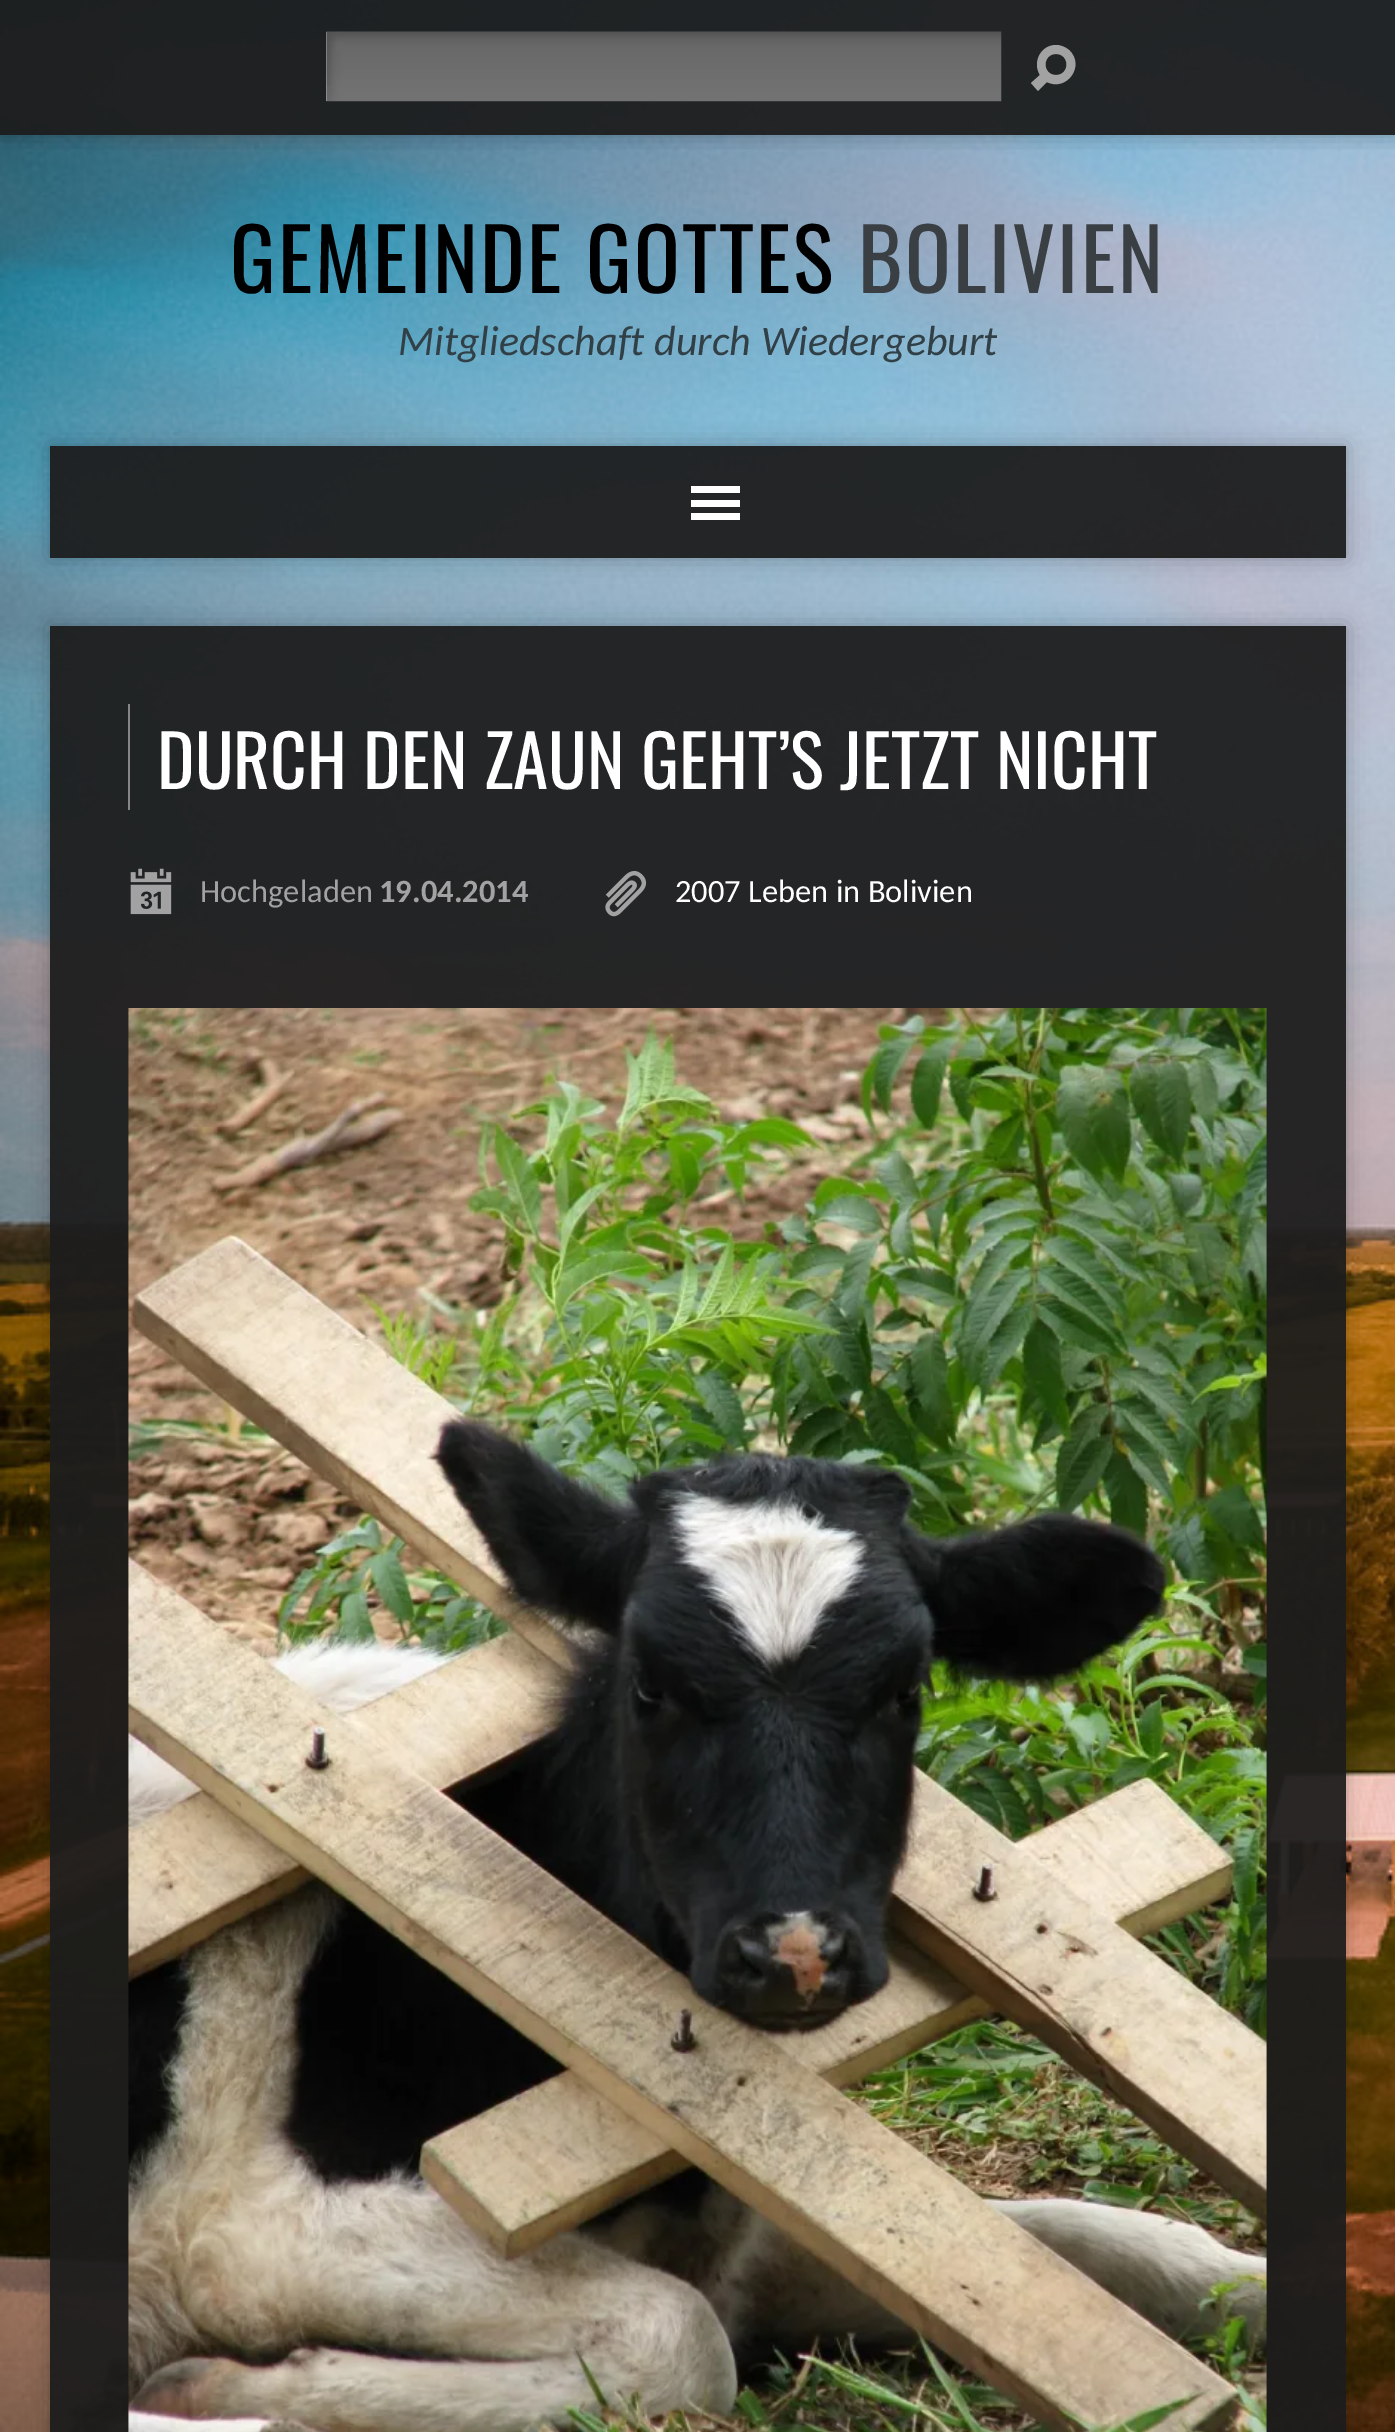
%!PS-Adobe-3.0
%%BoundingBox: 0 0 1395 2432
%%LanguageLevel: 3
%%Pages: 1
%%EndComments
%%BeginProlog
/setink { 3 { 255 div 3 1 roll } repeat setrgbcolor } def
/usefont { [ exch dup neg 0 0 3 -1 roll 0 0 ] selectfont } def
/drawtext { setink usefont moveto show } def
/fillbox { setink rectfill } def
/setalpha { dup .setfillconstantalpha .setstrokeconstantalpha } def
/rrect { 5 dict begin { /r /h /w /y /x } { exch def } forall
  x r add y moveto x w add y 2 copy h add r arct x w add y h add x 1 index r arct
  x y h add x y r arct x y 2 copy exch w add exch r arct closepath end } def
/softshadow { 12 dict begin { /a /b /q /h /w /y /x } { exch def } forall gsave /was 0 def
  9 -2 -9 { dup b mul 4 div /e exch def 1 sub .425 mul 2.718 exch exp 1 add a .99 .min exch div /now exch def
    1 1 now sub 1 was sub div sub setalpha /was now def
    w h .min e 2 mul add 0 gt { x e sub y e sub w e 2 mul add h e 2 mul add
      q e add b .6 mul add w h .min 2 div e add .min 0 .max rrect fill } if } for grestore end } def
/drawimage { 5 dict begin { /h /w /y /x /name } { exch def } forall
  gsave x y translate w h scale
  w h 8 [w 0 0 h 0 0] name (r) file false 3 colorimage grestore end } def
%%EndProlog
%%BeginSetup
<< /PageSize [1395 2432] /PageUsesTransparency true >> setpagedevice
%%EndSetup
%%Page: 1 1
0 .pushpdf14devicefilter
0 2432 translate 1 -1 scale
4 setmiterlimit
0 0 1395 2432 255 255 255 fillbox
(assets/img1.rgb) 0 0 1395 2432 drawimage
gsave
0 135 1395 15 rectclip
0 0 0 setink
0 0 1395 135 0 11 0.25 softshadow
grestore
0.94 setalpha
0 0 1395 135 28 28 28 fillbox
1 setalpha
(assets/img2.rgb) 326 31 676 71 drawimage
162 162 162 setink
1056 45 moveto 1041 45 1032 62 1040 75 curveto 1031 83 lineto 1038 91 lineto 1047 82 lineto 1066 92 1086 66 1069 50 curveto 1065 47 1061 45 1056 45 curveto closepath 1056 54 moveto 1070 54 1070 75 1056 75 curveto 1042 75 1042 54 1056 54 curveto closepath fill
/Oswald-Regular 85 usefont
0 0 0 setink
230 293 moveto 2.25 0 (GEMEINDE GOTTES) ashow
58 63 68 setink
858 293 moveto 2.25 0 (BOLIVIEN) ashow
(Mitgliedschaft durch Wiedergeburt) 398 355 /Carlito-Italic 42.1 49 63 70 drawtext
gsave
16 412 moveto 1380 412 lineto 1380 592 lineto 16 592 lineto closepath 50 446 moveto 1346 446 lineto 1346 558 lineto 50 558 lineto closepath eoclip newpath
0 0 0 setink
50 446 1296 112 0 11 0.25 softshadow
grestore
0.94 setalpha
50 446 1296 112 28 28 28 fillbox
1 setalpha
691 486 49 7 255 255 255 fillbox
691 500 49 7 255 255 255 fillbox
691 513 49 7 255 255 255 fillbox
gsave
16 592 moveto 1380 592 lineto 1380 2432 lineto 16 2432 lineto closepath 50 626 moveto 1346 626 lineto 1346 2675 lineto 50 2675 lineto closepath eoclip newpath
0 0 0 setink
50 626 1296 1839 0 11 0.25 softshadow
grestore
0.94 setalpha
50 626 1296 1806 28 28 28 fillbox
1 setalpha
128 704 2 106 134 134 134 fillbox
(DURCH DEN ZAUN GEHT’S JETZT NICHT) 157 789 /Oswald-Regular 71.25 255 255 255 drawtext
(assets/img3.rgb) 130 868 42 47 drawimage
(Hochgeladen) 200 902 /Carlito-Regular 32.5 162 162 162 drawtext
(19.04.2014) 379 902 /Carlito-Bold 32.5 162 162 162 drawtext
(assets/img4.rgb) 605 871 42 46 drawimage
(2007 Leben in Bolivien) 675 902 /Carlito-Regular 32.5 255 255 255 drawtext
(assets/img5.rgb) 128 1008 1139 1424 drawimage
.poppdf14devicefilter showpage
%%EOF
